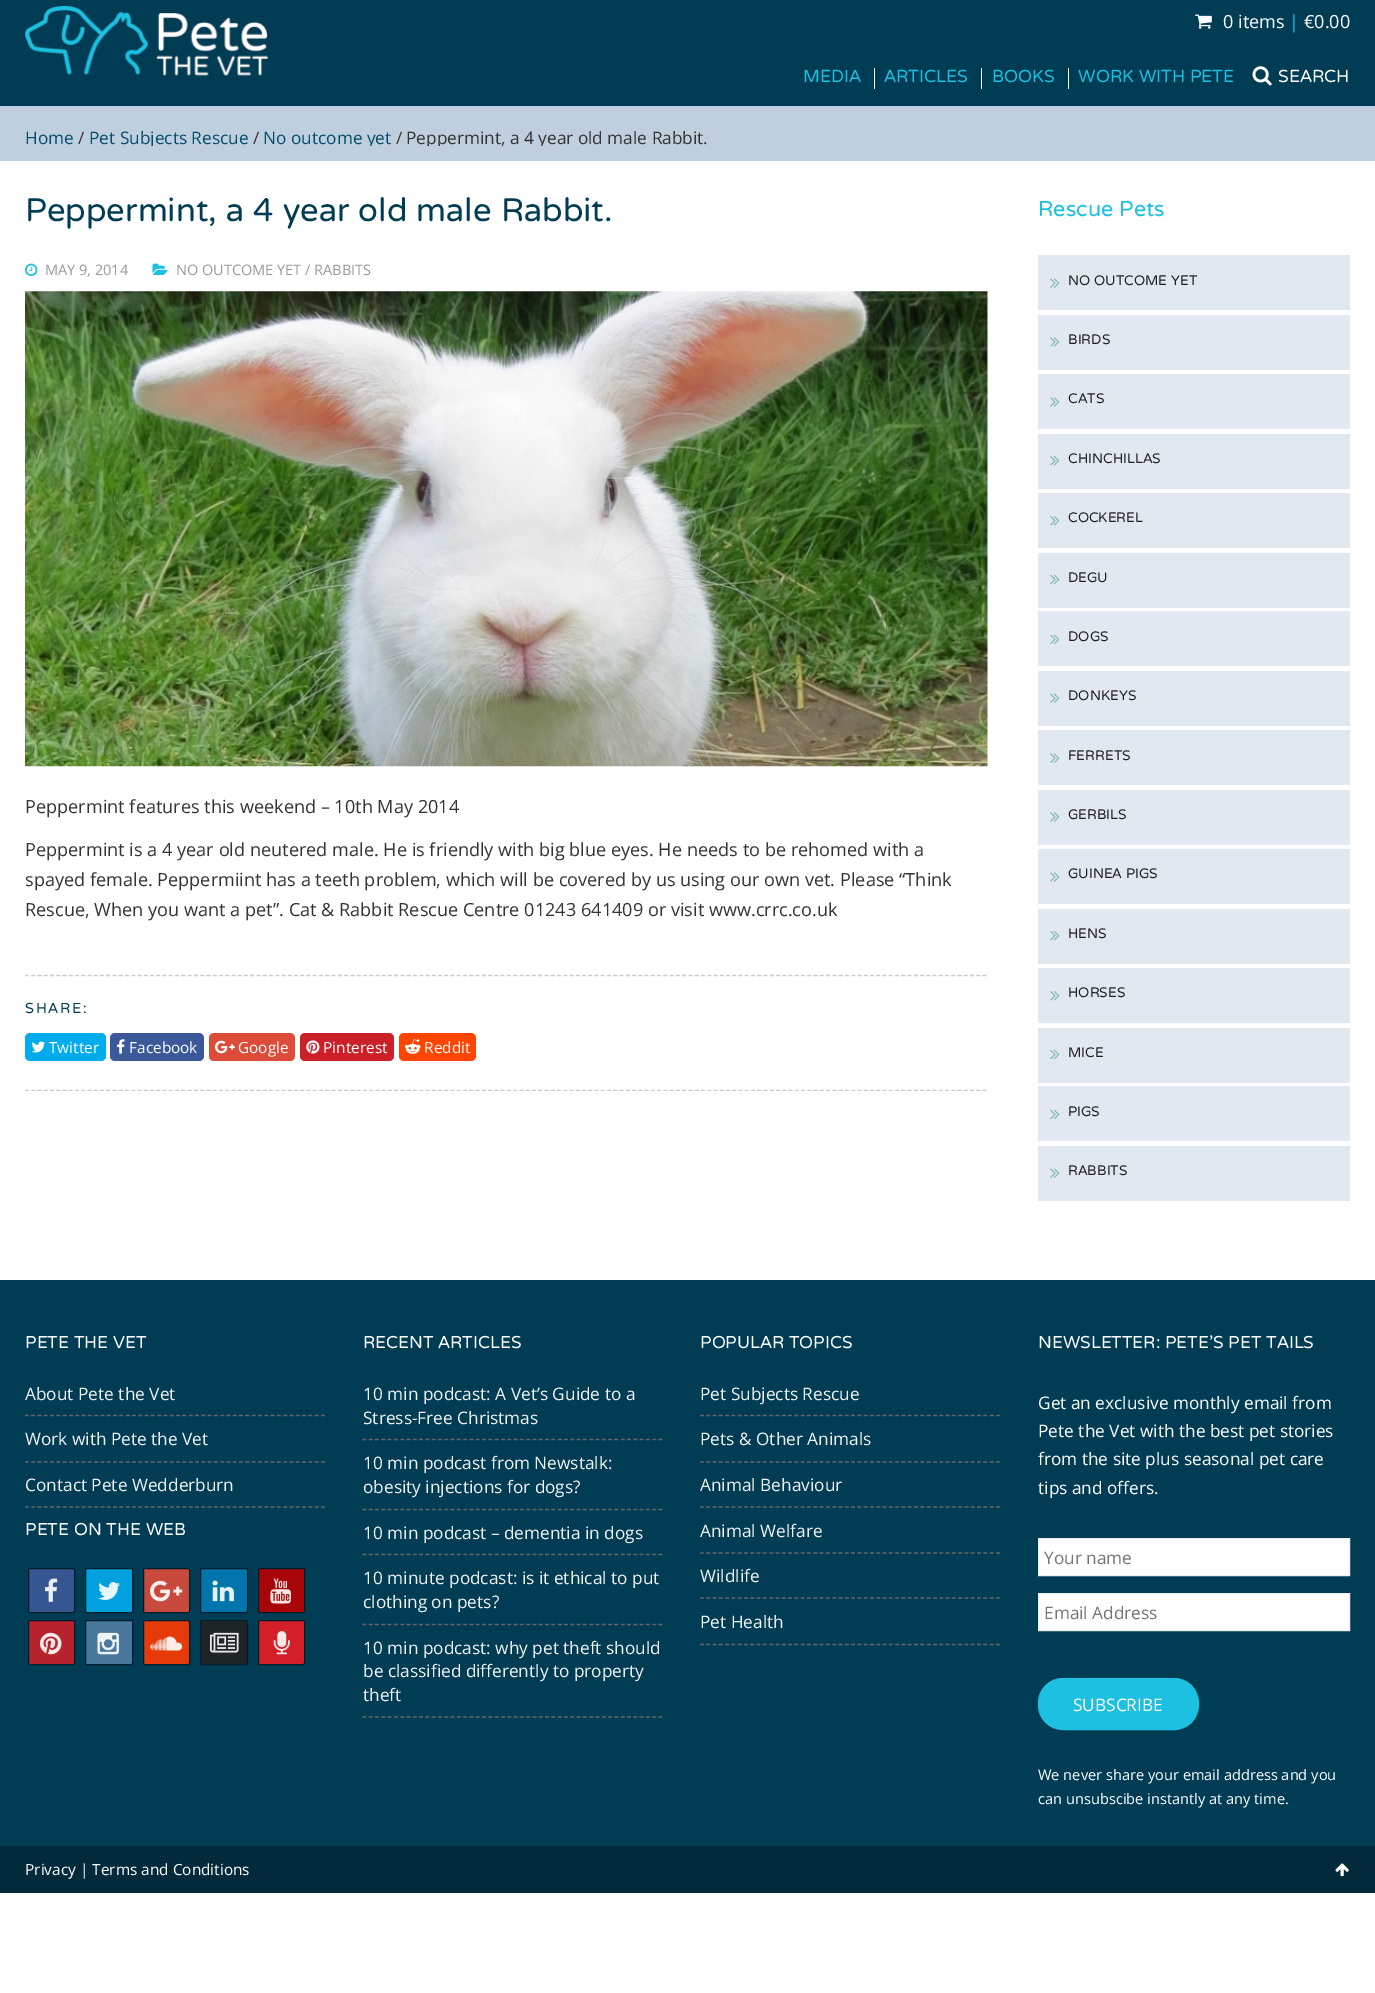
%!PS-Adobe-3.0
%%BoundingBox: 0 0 1375 1993
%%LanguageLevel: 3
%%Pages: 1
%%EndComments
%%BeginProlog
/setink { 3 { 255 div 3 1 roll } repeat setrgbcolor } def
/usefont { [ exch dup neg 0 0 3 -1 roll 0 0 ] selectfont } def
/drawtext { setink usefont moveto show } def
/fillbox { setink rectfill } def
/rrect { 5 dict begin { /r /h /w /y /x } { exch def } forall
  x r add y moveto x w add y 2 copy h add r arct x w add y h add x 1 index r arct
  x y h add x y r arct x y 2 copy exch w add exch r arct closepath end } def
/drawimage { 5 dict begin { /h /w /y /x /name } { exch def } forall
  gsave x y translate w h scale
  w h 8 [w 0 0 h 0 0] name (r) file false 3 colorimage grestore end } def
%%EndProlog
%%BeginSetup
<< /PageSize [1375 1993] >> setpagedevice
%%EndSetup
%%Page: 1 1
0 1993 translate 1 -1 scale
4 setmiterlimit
0 0 1375 1993 255 255 255 fillbox
0 0 1375 106 0 61 85 fillbox
(assets/img1.rgb) 25 6 244 70 drawimage
(assets/img2.rgb) 1195 14 17 15 drawimage
(0 items) 1223 28 /OpenSans-Regular 18.12 255 255 255 drawtext
(|) 1289 28 /OpenSans-Regular 18.12 28 192 224 drawtext
(€0.00) 1304 28 /OpenSans-Regular 18.12 255 255 255 drawtext
(MEDIA) 803 82 /NTR-Regular 21.75 28 192 224 drawtext
874 68 1 21 255 255 255 fillbox
(ARTICLES) 884 82 /NTR-Regular 21.75 28 192 224 drawtext
981 68 1 21 255 255 255 fillbox
(BOOKS) 992 82 /NTR-Regular 21.75 28 192 224 drawtext
1068 68 1 21 255 255 255 fillbox
(WORK WITH PETE) 1078 82 /NTR-Regular 21.75 28 192 224 drawtext
(assets/img3.rgb) 1252 66 20 20 drawimage
(SEARCH) 1278 82 /NTR-Regular 21.75 255 255 255 drawtext
0 106 1375 55 192 207 221 fillbox
(Home) 25 144 /OpenSans-Regular 17.25 4 77 108 drawtext
(/) 78 144 /OpenSans-Regular 17.25 51 51 51 drawtext
gsave
0 106 1375 40 rectclip
(Pet Subjects Rescue) 89 144 /OpenSans-Regular 17.25 4 77 108 drawtext
grestore
(/) 253 144 /OpenSans-Regular 17.25 51 51 51 drawtext
gsave
0 106 1375 40 rectclip
(No outcome yet) 263 144 /OpenSans-Regular 17.25 4 77 108 drawtext
grestore
(/) 396 144 /OpenSans-Regular 17.25 51 51 51 drawtext
gsave
0 106 1375 40 rectclip
(Peppermint, a 4 year old male Rabbit.) 406 144 /OpenSans-Regular 17.25 51 51 51 drawtext
grestore
(Peppermint, a 4 year old male Rabbit.) 25 221 /NTR-Regular 40.75 0 61 85 drawtext
(assets/img4.rgb) 25 263 13 13 drawimage
(MAY 9, 2014) 45 275 /OpenSans-Regular 14.5 153 153 153 drawtext
(assets/img5.rgb) 152 263 16 12 drawimage
(NO OUTCOME YET / RABBITS) 176 275 /OpenSans-Regular 14.5 153 153 153 drawtext
(assets/img6.rgb) 25 291 963 476 drawimage
(Peppermint features this weekend – 10th May 2014) 25 813 /OpenSans-Regular 18.12 51 51 51 drawtext
(Peppermint is a 4 year old neutered male. He is friendly with big blue eyes. He needs to be rehomed with a) 25 856 /OpenSans-Regular 18.12 51 51 51 drawtext
(spayed female. Peppermiint has a teeth problem, which will be covered by us using our own vet. Please “Think) 25 886 /OpenSans-Regular 18.12 51 51 51 drawtext
(Rescue, When you want a pet”. Cat & Rabbit Rescue Centre 01243 641409 or visit www.crrc.co.uk) 25 916 /OpenSans-Regular 18.12 51 51 51 drawtext
204 204 204 setink
1.2 setlinewidth
[3.75 2.51] 0 setdash
25 975.5 moveto 987.5 975.5 lineto stroke
gsave
25 939 988 152 rectclip
25 1090.5 moveto 987.5 1090.5 lineto stroke
grestore
/NTR-Regular 18.12 usefont
0 61 85 setink
25 1013 moveto 1.75 0 (SHARE:) ashow
0 172 237 setink
25 1033 81 28 5 rrect fill
(assets/img7.rgb) 31 1041 14 12 drawimage
(Twitter) 49 1053 /OpenSans-Regular 15.4 255 255 255 drawtext
59 89 152 setink
110 1033 94 28 5 rrect fill
(assets/img8.rgb) 117 1039 8 15 drawimage
(Facebook) 129 1053 /OpenSans-Regular 15.4 255 255 255 drawtext
221 75 57 setink
209 1033 86 28 5 rrect fill
(assets/img9.rgb) 215 1040 20 14 drawimage
(Google) 238 1053 /OpenSans-Regular 15.4 255 255 255 drawtext
203 32 39 setink
300 1033 94 28 5 rrect fill
(assets/img10.rgb) 306 1040 14 14 drawimage
(Pinterest) 323 1053 /OpenSans-Regular 15.4 255 255 255 drawtext
255 69 0 setink
399 1033 77 28 5 rrect fill
(assets/img11.rgb) 405 1039 16 15 drawimage
(Reddit) 424 1053 /OpenSans-Regular 15.4 255 255 255 drawtext
(Rescue Pets) 1038 216 /NTR-Regular 27 28 192 224 drawtext
1038 255 312 55 225 232 239 fillbox
(assets/img12.rgb) 1050 278 10 10 drawimage
(NO OUTCOME YET) 1068 285 /NTR-Regular 17.25 33 33 33 drawtext
1038 315 312 55 225 232 239 fillbox
(assets/img13.rgb) 1050 337 10 10 drawimage
(BIRDS) 1068 344 /NTR-Regular 17.25 33 33 33 drawtext
1038 374 312 55 225 232 239 fillbox
(assets/img13.rgb) 1050 397 10 10 drawimage
(CATS) 1068 403 /NTR-Regular 17.25 33 33 33 drawtext
1038 434 312 55 225 232 239 fillbox
(assets/img14.rgb) 1050 456 10 10 drawimage
(CHINCHILLAS) 1068 463 /NTR-Regular 17.25 33 33 33 drawtext
1038 493 312 55 225 232 239 fillbox
(assets/img14.rgb) 1050 516 10 10 drawimage
(COCKEREL) 1068 522 /NTR-Regular 17.25 33 33 33 drawtext
1038 553 312 55 225 232 239 fillbox
(assets/img15.rgb) 1050 574 10 11 drawimage
(DEGU) 1068 582 /NTR-Regular 17.25 33 33 33 drawtext
1038 611 312 55 225 232 239 fillbox
(assets/img15.rgb) 1050 634 10 11 drawimage
(DOGS) 1068 641 /NTR-Regular 17.25 33 33 33 drawtext
1038 671 312 55 225 232 239 fillbox
(assets/img12.rgb) 1050 693 10 10 drawimage
(DONKEYS) 1068 700 /NTR-Regular 17.25 33 33 33 drawtext
1038 730 312 55 225 232 239 fillbox
(assets/img12.rgb) 1050 753 10 10 drawimage
(FERRETS) 1068 760 /NTR-Regular 17.25 33 33 33 drawtext
1038 790 312 55 225 232 239 fillbox
(assets/img13.rgb) 1050 812 10 10 drawimage
(GERBILS) 1068 819 /NTR-Regular 17.25 33 33 33 drawtext
1038 849 312 55 225 232 239 fillbox
(assets/img13.rgb) 1050 872 10 10 drawimage
(GUINEA PIGS) 1068 878 /NTR-Regular 17.25 33 33 33 drawtext
1038 909 312 55 225 232 239 fillbox
(assets/img14.rgb) 1050 931 10 10 drawimage
(HENS) 1068 938 /NTR-Regular 17.25 33 33 33 drawtext
1038 968 312 55 225 232 239 fillbox
(assets/img14.rgb) 1050 991 10 10 drawimage
(HORSES) 1068 997 /NTR-Regular 17.25 33 33 33 drawtext
1038 1028 312 55 225 232 239 fillbox
(assets/img15.rgb) 1050 1049 10 11 drawimage
(MICE) 1068 1057 /NTR-Regular 17.25 33 33 33 drawtext
1038 1086 312 55 225 232 239 fillbox
(assets/img15.rgb) 1050 1109 10 11 drawimage
(PIGS) 1068 1116 /NTR-Regular 17.25 33 33 33 drawtext
1038 1146 312 55 225 232 239 fillbox
(assets/img12.rgb) 1050 1168 10 10 drawimage
(RABBITS) 1068 1175 /NTR-Regular 17.25 33 33 33 drawtext
0 1280 1375 566 0 61 85 fillbox
(PETE THE VET) 25 1348 /NTR-Regular 21.5 255 255 255 drawtext
102 102 102 setink
[3.75 2.55] 0 setdash
25 1415.5 moveto 325 1415.5 lineto stroke
(About Pete the Vet) 25 1400 /OpenSans-Regular 17.25 243 243 243 drawtext
102 102 102 setink
25 1462 moveto 325 1462 lineto stroke
(Work with Pete the Vet) 25 1445 /OpenSans-Regular 17.25 243 243 243 drawtext
102 102 102 setink
25 1507 moveto 325 1507 lineto stroke
(Contact Pete Wedderburn) 25 1491 /OpenSans-Regular 17.25 243 243 243 drawtext
(PETE ON THE WEB) 25 1535 /NTR-Regular 21.5 255 255 255 drawtext
53 86 145 setink
28.5 1568.5 46 44 1.5 rrect gsave fill grestore
0 30 41 setink
1 setlinewidth
[] 0 setdash
stroke
(assets/img16.rgb) 45 1578 13 24 drawimage
0 161 222 setink
85.5 1568.5 47 44 1.5 rrect gsave fill grestore
0 30 41 setink
stroke
(assets/img17.rgb) 98 1582 22 18 drawimage
199 74 60 setink
143.5 1568.5 46 44 1.5 rrect gsave fill grestore
0 30 41 setink
stroke
(assets/img18.rgb) 150 1580 33 22 drawimage
0 117 172 setink
200.5 1568.5 47 44 1.5 rrect gsave fill grestore
0 30 41 setink
stroke
(assets/img19.rgb) 212 1580 22 22 drawimage
168 6 9 setink
258.5 1568.5 46 44 1.5 rrect gsave fill grestore
0 30 41 setink
stroke
(assets/img20.rgb) 270 1578 22 26 drawimage
183 35 44 setink
28.5 1620.5 46 44 1.5 rrect gsave fill grestore
0 30 41 setink
stroke
(assets/img21.rgb) 40 1632 22 23 drawimage
73 120 156 setink
85.5 1620.5 47 44 1.5 rrect gsave fill grestore
0 30 41 setink
stroke
(assets/img22.rgb) 97 1632 22 23 drawimage
230 58 9 setink
143.5 1620.5 46 44 1.5 rrect gsave fill grestore
0 30 41 setink
stroke
(assets/img23.rgb) 150 1636 33 15 drawimage
31 37 39 setink
200.5 1620.5 47 44 1.5 rrect gsave fill grestore
0 30 41 setink
stroke
(assets/img24.rgb) 210 1632 29 21 drawimage
212 31 41 setink
258.5 1620.5 46 44 1.5 rrect gsave fill grestore
0 30 41 setink
stroke
(assets/img25.rgb) 273 1631 17 24 drawimage
(RECENT ARTICLES) 363 1348 /NTR-Regular 21.5 255 255 255 drawtext
102 102 102 setink
1.2 setlinewidth
[3.75 2.55] 0 setdash
362.5 1439.5 moveto 662.5 1439.5 lineto stroke
(10 min podcast: A Vet’s Guide to a) 363 1400 /OpenSans-Regular 17.25 243 243 243 drawtext
(Stress-Free Christmas) 363 1424 /OpenSans-Regular 17.25 243 243 243 drawtext
102 102 102 setink
362.5 1509.5 moveto 662.5 1509.5 lineto stroke
(10 min podcast from Newstalk:) 363 1469 /OpenSans-Regular 17.25 243 243 243 drawtext
(obesity injections for dogs?) 363 1493 /OpenSans-Regular 17.25 243 243 243 drawtext
102 102 102 setink
362.5 1554.5 moveto 662.5 1554.5 lineto stroke
(10 min podcast – dementia in dogs) 363 1539 /OpenSans-Regular 17.25 243 243 243 drawtext
102 102 102 setink
362.5 1624.5 moveto 662.5 1624.5 lineto stroke
(10 minute podcast: is it ethical to put) 363 1584 /OpenSans-Regular 17.25 243 243 243 drawtext
(clothing on pets?) 363 1608 /OpenSans-Regular 17.25 243 243 243 drawtext
102 102 102 setink
362.5 1717 moveto 662.5 1717 lineto stroke
(10 min podcast: why pet theft should) 363 1654 /OpenSans-Regular 17.25 243 243 243 drawtext
(be classified differently to property) 363 1677 /OpenSans-Regular 17.25 243 243 243 drawtext
(theft) 363 1701 /OpenSans-Regular 17.25 243 243 243 drawtext
(POPULAR TOPICS) 700 1348 /NTR-Regular 21.5 255 255 255 drawtext
102 102 102 setink
700 1415.5 moveto 1000 1415.5 lineto stroke
(Pet Subjects Rescue) 700 1400 /OpenSans-Regular 17.25 243 243 243 drawtext
102 102 102 setink
700 1462 moveto 1000 1462 lineto stroke
(Pets & Other Animals) 700 1445 /OpenSans-Regular 17.25 243 243 243 drawtext
102 102 102 setink
700 1507 moveto 1000 1507 lineto stroke
(Animal Behaviour) 700 1491 /OpenSans-Regular 17.25 243 243 243 drawtext
102 102 102 setink
700 1553 moveto 1000 1553 lineto stroke
(Animal Welfare) 700 1537 /OpenSans-Regular 17.25 243 243 243 drawtext
102 102 102 setink
700 1598 moveto 1000 1598 lineto stroke
(Wildlife) 700 1582 /OpenSans-Regular 17.25 243 243 243 drawtext
102 102 102 setink
700 1644.5 moveto 1000 1644.5 lineto stroke
(Pet Health) 700 1628 /OpenSans-Regular 17.25 243 243 243 drawtext
(NEWSLETTER: PETE’S PET TAILS) 1038 1348 /NTR-Regular 21.5 255 255 255 drawtext
(Get an exclusive monthly email from) 1038 1409 /OpenSans-Regular 17.25 255 255 255 drawtext
(Pete the Vet with the best pet stories) 1038 1437 /OpenSans-Regular 17.25 255 255 255 drawtext
(from the site plus seasonal pet care) 1038 1465 /OpenSans-Regular 17.25 255 255 255 drawtext
(tips and offers.) 1038 1494 /OpenSans-Regular 17.25 255 255 255 drawtext
1038.5 1538.5 moveto 1349.5 1538.5 lineto 1349.5 1575.5 lineto 1038.5 1575.5 lineto closepath gsave fill grestore
238 238 238 setink
1 setlinewidth
[] 0 setdash
stroke
(Your name) 1044 1564 /OpenSans-Regular 17.25 117 117 117 drawtext
255 255 255 setink
1038.5 1593.5 moveto 1349.5 1593.5 lineto 1349.5 1630.5 lineto 1038.5 1630.5 lineto closepath gsave fill grestore
238 238 238 setink
stroke
(Email Address) 1044 1619 /OpenSans-Regular 17.25 117 117 117 drawtext
29 192 224 setink
1038.5 1678.5 160 51 24.5 rrect gsave fill grestore
stroke
(SUBSCRIBE) 1073 1711 /OpenSans-Regular 17.25 255 255 255 drawtext
(We never share your email address and you) 1038 1780 /OpenSans-Regular 14.6 255 255 255 drawtext
(can unsubscibe instantly at any time.) 1038 1804 /OpenSans-Regular 14.6 255 255 255 drawtext
0 1846 1375 47 2 42 59 fillbox
(Privacy | Terms and Conditions) 25 1875 /OpenSans-Regular 15.4 255 255 255 drawtext
(assets/img26.rgb) 1335 1863 14 14 drawimage
showpage
%%EOF
